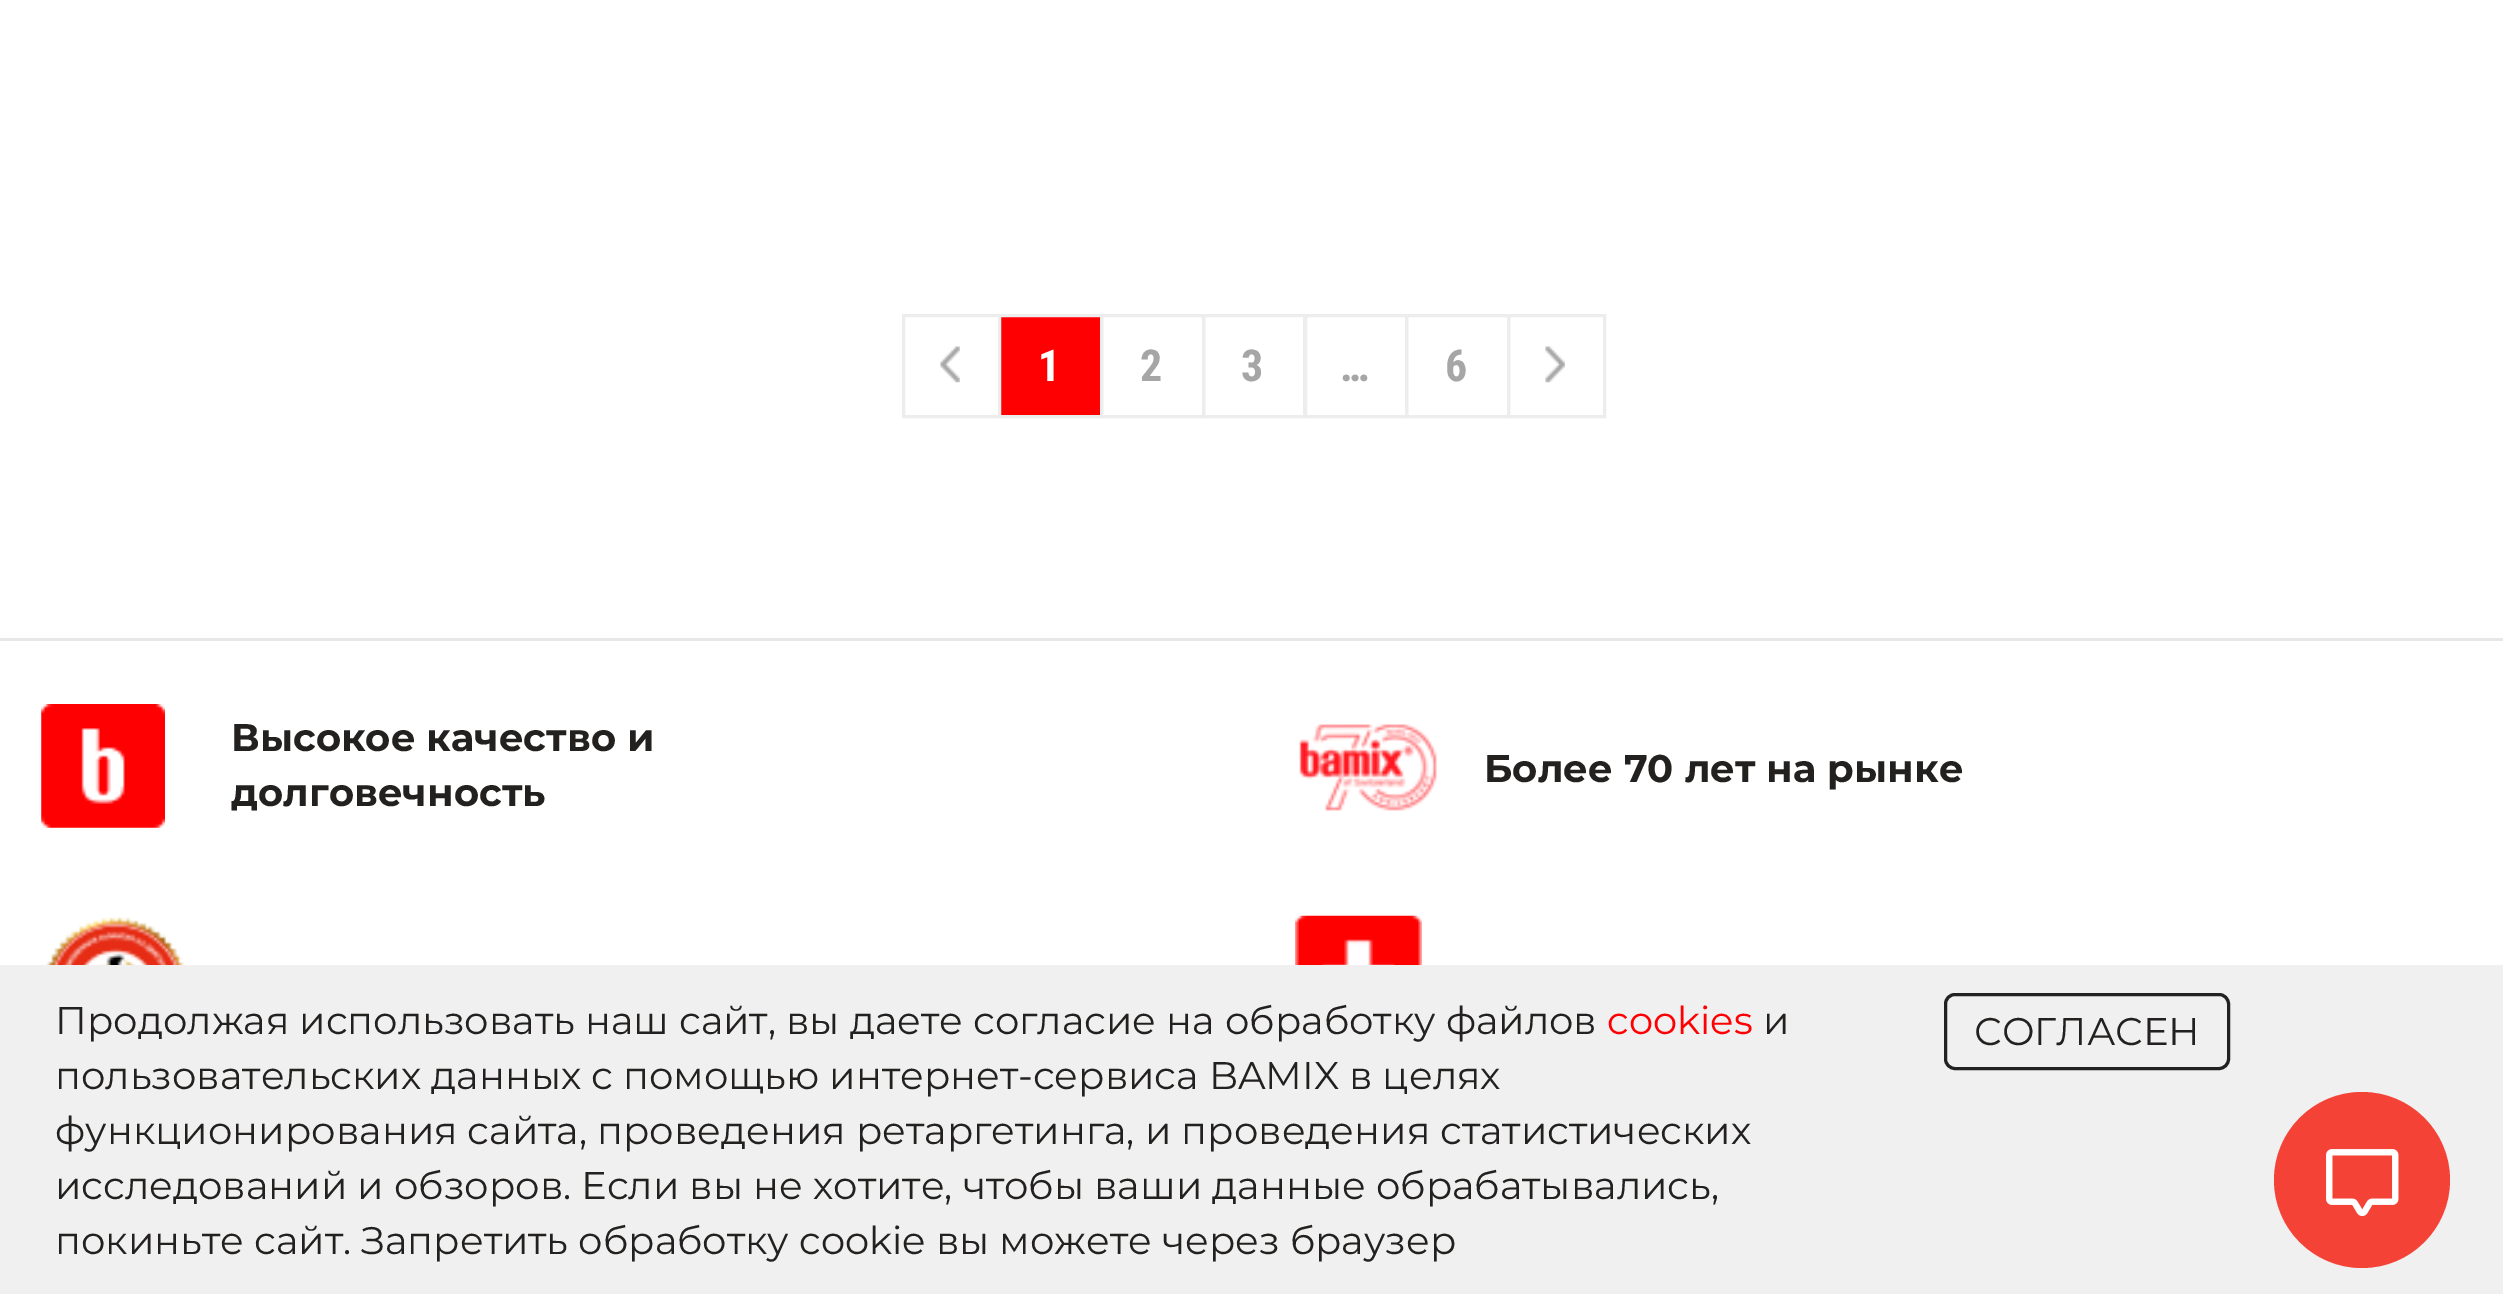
%!PS-Adobe-3.0
%%BoundingBox: 0 0 2503 1294
%%LanguageLevel: 3
%%Pages: 1
%%EndComments
%%BeginProlog
/setink { 3 { 255 div 3 1 roll } repeat setrgbcolor } def
/usefont { [ exch dup neg 0 0 3 -1 roll 0 0 ] selectfont } def
/drawtext { setink usefont moveto show } def
/fillbox { setink rectfill } def
/disc { newpath 0 360 arc closepath } def
/rrect { 5 dict begin { /r /h /w /y /x } { exch def } forall
  x r add y moveto x w add y 2 copy h add r arct x w add y h add x 1 index r arct
  x y h add x y r arct x y 2 copy exch w add exch r arct closepath end } def
/drawimage { 5 dict begin { /h /w /y /x /name } { exch def } forall
  gsave x y translate w h scale
  w h 8 [w 0 0 h 0 0] name (r) file false 3 colorimage grestore end } def
%%EndProlog
%%BeginSetup
<< /PageSize [2503 1294] >> setpagedevice
%%EndSetup
%%Page: 1 1
0 1294 translate 1 -1 scale
4 setmiterlimit
0 0 2503 1294 255 255 255 fillbox
(assets/img1.rgb) 940 346 20 37 drawimage
237 237 237 setink
3 setlinewidth
903.5 315.5 96 101 rectstroke
1101.5 315.5 102 101 rectstroke
255 0 2 setink
999.5 315.5 moveto 1101.5 315.5 lineto 1101.5 416.5 lineto 999.5 416.5 lineto closepath gsave fill grestore
237 237 237 setink
stroke
(1) 1038 381 /RobotoCondensed-Bold 44 255 255 255 drawtext
(2) 1140 381 /RobotoCondensed-Bold 44 166 166 166 drawtext
237 237 237 setink
1203.5 315.5 101 101 rectstroke
(3) 1241 381 /RobotoCondensed-Bold 44 166 166 166 drawtext
237 237 237 setink
1305.5 315.5 101 101 rectstroke
(…) 1340 381 /RobotoCondensed-Bold 44 166 166 166 drawtext
237 237 237 setink
1406.5 315.5 102 101 rectstroke
(6) 1445 381 /RobotoCondensed-Bold 44 166 166 166 drawtext
(assets/img2.rgb) 1545 346 20 37 drawimage
237 237 237 setink
1508.5 315.5 96 101 rectstroke
0 638 2503 3 231 231 231 fillbox
(assets/img3.rgb) 41 704 124 124 drawimage
(Высокое качество и) 231 751 /Montserrat-Bold 38.5 35 33 31 drawtext
(долговечность) 231 806 /Montserrat-Bold 38.5 35 33 31 drawtext
(assets/img4.rgb) 1299 724 138 87 drawimage
(Более 70 лет на рынке) 1484 782 /Montserrat-Bold 38.5 35 33 31 drawtext
(assets/img5.rgb) 46 917 139 48 drawimage
(assets/img6.rgb) 1295 915 127 50 drawimage
0 965 2503 329 240 240 240 fillbox
(Продолжая использовать наш сайт, вы даете согласие на обработку файлов) 55 1034 /Montserrat-Regular 38.5 35 33 31 drawtext
(cookies) 1607 1034 /Montserrat-Regular 38.5 255 0 2 drawtext
(и) 1763 1034 /Montserrat-Regular 38.5 35 33 31 drawtext
(пользовательских данных с помощью интернет-сервиса BAMIX в целях) 55 1089 /Montserrat-Regular 38.5 35 33 31 drawtext
(функционирования сайта, проведения ретаргетинга, и проведения статистических) 55 1144 /Montserrat-Regular 38.5 35 33 31 drawtext
(исследований и обзоров. Если вы не хотите, чтобы ваши данные обрабатывались,) 55 1199 /Montserrat-Regular 38.5 35 33 31 drawtext
(покиньте сайт. Запретить обработку cookie вы можете через браузер) 55 1254 /Montserrat-Regular 38.5 35 33 31 drawtext
34 34 34 setink
1945.5 994.5 283 74 9.5 rrect stroke
(СОГЛАСЕН) 1974 1045 /Montserrat-Regular 38.5 35 33 31 drawtext
244 66 54 setink
2362 1180 88 disc fill
(assets/img7.rgb) 2326 1149 73 68 drawimage
showpage
%%EOF
